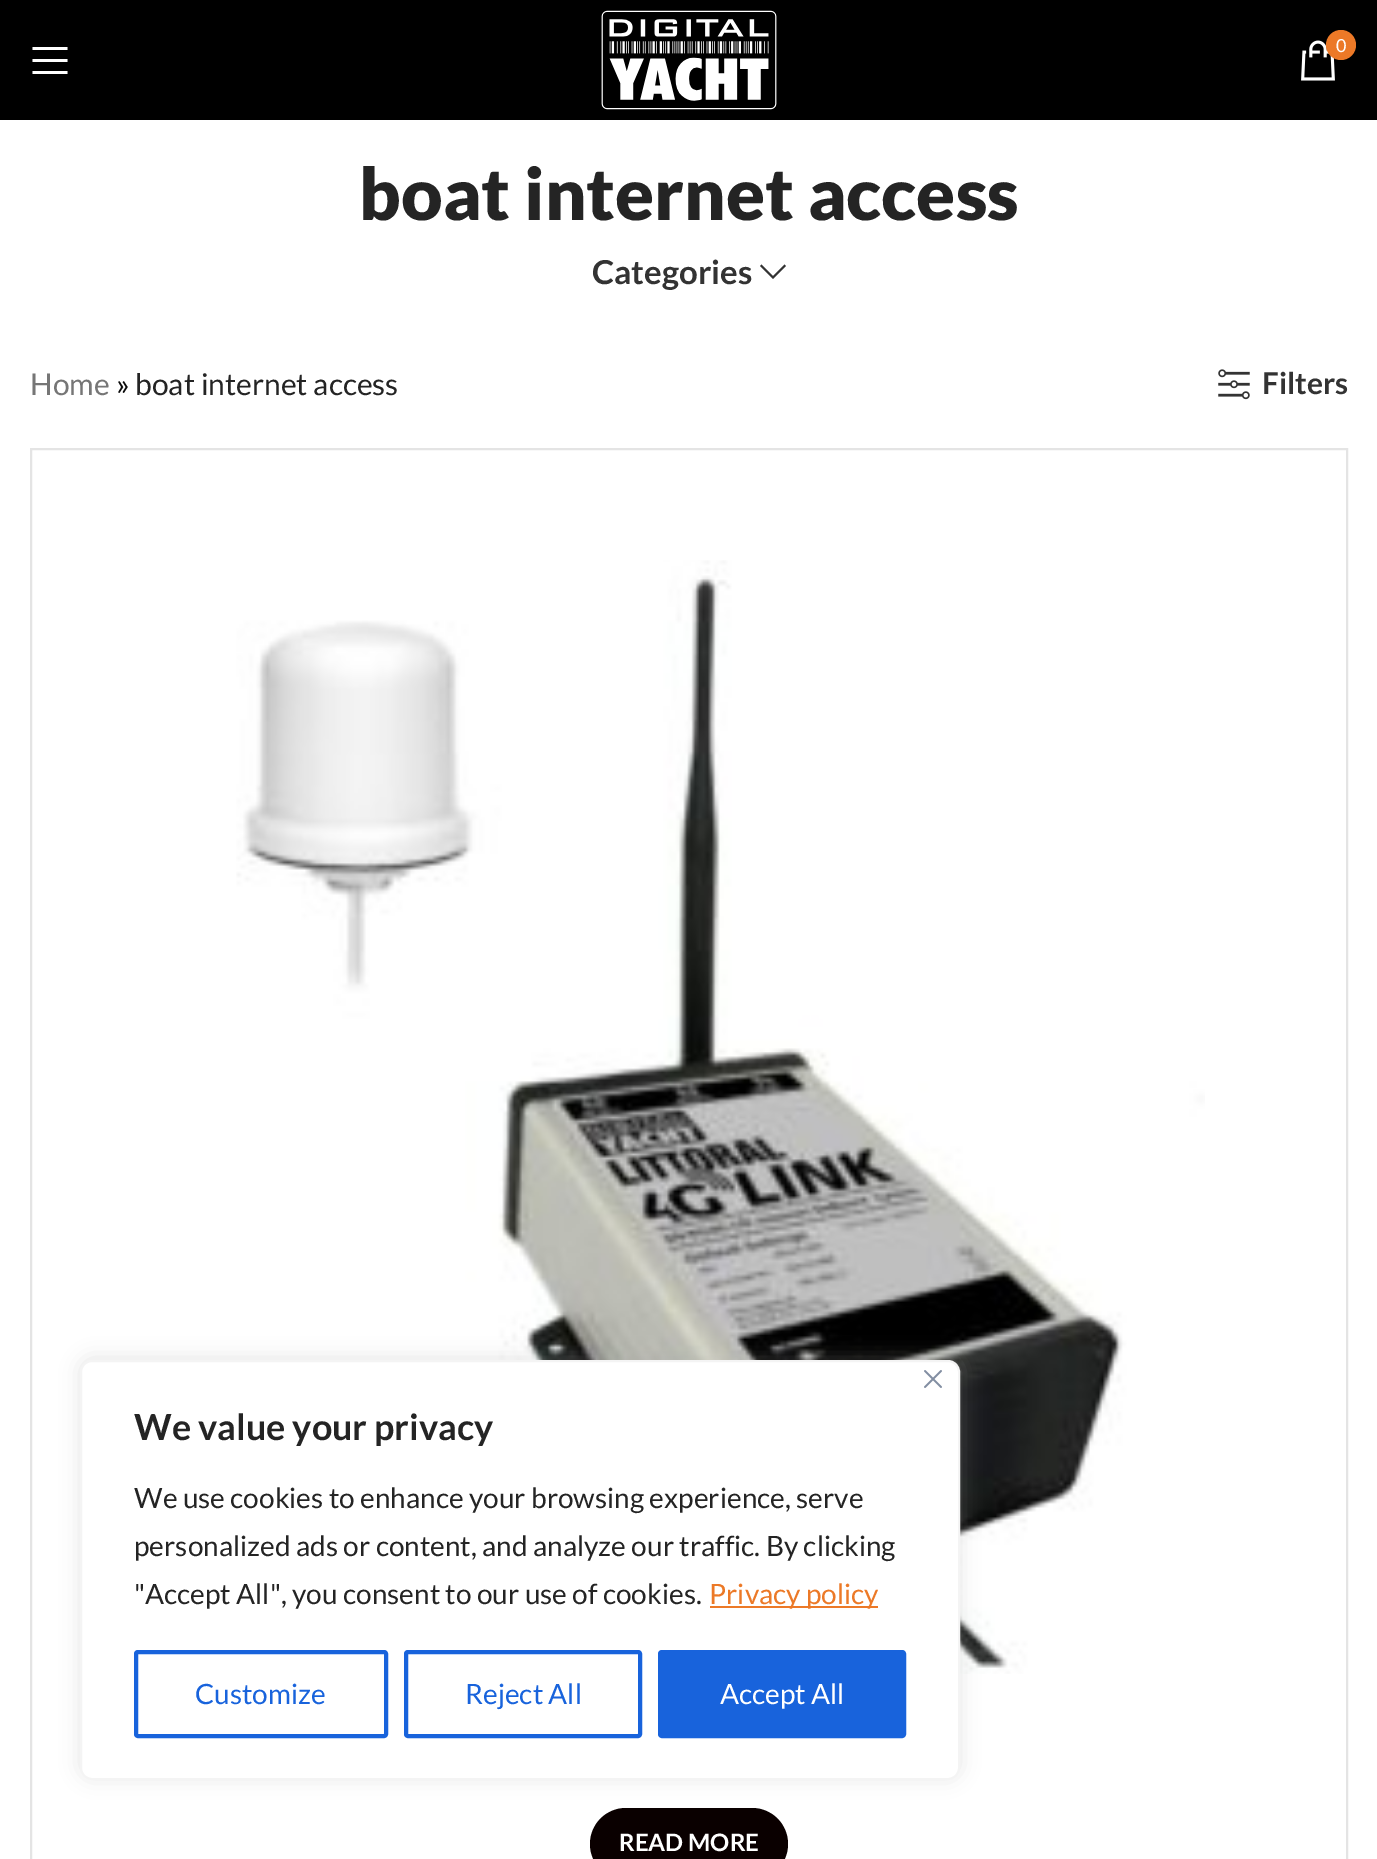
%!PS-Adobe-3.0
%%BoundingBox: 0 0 1377 1859
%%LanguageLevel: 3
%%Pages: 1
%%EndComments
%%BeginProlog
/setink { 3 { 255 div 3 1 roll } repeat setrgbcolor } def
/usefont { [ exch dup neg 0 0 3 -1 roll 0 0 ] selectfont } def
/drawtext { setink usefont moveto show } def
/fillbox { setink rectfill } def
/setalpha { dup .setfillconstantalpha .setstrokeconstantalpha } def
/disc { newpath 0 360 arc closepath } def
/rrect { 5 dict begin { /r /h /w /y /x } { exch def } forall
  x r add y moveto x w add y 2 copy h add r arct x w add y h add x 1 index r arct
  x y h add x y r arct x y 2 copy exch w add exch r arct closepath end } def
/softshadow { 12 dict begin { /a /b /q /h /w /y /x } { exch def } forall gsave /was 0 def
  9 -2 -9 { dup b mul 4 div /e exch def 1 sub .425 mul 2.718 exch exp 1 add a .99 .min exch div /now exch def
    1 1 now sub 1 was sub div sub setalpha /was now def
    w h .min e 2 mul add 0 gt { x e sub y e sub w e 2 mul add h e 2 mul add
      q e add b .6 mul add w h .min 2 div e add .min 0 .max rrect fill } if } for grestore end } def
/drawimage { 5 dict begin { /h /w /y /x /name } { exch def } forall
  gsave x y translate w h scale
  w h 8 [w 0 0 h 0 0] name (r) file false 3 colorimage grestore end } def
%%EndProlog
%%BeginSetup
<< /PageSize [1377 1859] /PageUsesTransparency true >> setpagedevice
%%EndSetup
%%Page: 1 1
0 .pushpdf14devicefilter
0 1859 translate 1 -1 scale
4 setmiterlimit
0 0 1377 1859 255 255 255 fillbox
0 0 1377 120 0 0 0 fillbox
(assets/img1.rgb) 601 10 176 100 drawimage
(assets/img2.rgb) 1301 40 34 41 drawimage
236 121 39 setink
1341 45 15 disc fill
(0) 1336 52 /Lato-Regular 18 255 255 255 drawtext
32.5 50 moveto 67.5 50 lineto 67.5 47 lineto 32.5 47 lineto closepath 32.5 62 moveto 67.5 62 lineto 67.5 59 lineto 32.5 59 lineto closepath 32.5 74 moveto 67.5 74 lineto 67.5 71 lineto 32.5 71 lineto closepath fill
(boat internet access) 359 220 /Lato-Black 72 36 36 36 drawtext
(Categories) 592 284 /Lato-Bold 33 51 51 51 drawtext
784.5 264.5 moveto 773 276 lineto 761.5 264.5 lineto 760 266 lineto 773 279 lineto 786 266 lineto closepath fill
(Home) 30 395 /Lato-Regular 30 118 118 118 drawtext
(») 116 395 /Lato-Regular 30 10 10 10 drawtext
(boat internet access) 135 395 /Lato-Regular 30 36 36 36 drawtext
(assets/img3.rgb) 1218 369 32 31 drawimage
(Filters) 1262 394 /Lato-Bold 30 51 51 51 drawtext
228 228 228 setink
2 setlinewidth
31 449 1316 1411 rectstroke
(assets/img4.rgb) 236 560 969 1114 drawimage
10 0 0 setink
590 1808 198 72 36 rrect fill
(READ MORE) 619 1851 /Lato-Bold 24 255 255 255 drawtext
172 171 171 setink
80 1358 880 420 12 10 0.3 softshadow
255 255 255 setink
81 1361 878 418 11 rrect gsave fill grestore
244 244 244 setink
stroke
(assets/img5.rgb) 924 1370 18 18 drawimage
(We value your privacy) 134 1440 /Lato-Bold 36 36 36 36 drawtext
(We use cookies to enhance your browsing experience, serve) 134 1508 /Lato-Regular 28 36 36 36 drawtext
(personalized ads or content, and analyze our traffic. By clicking) 134 1556 /Lato-Regular 28 36 36 36 drawtext
("Accept All", you consent to our use of cookies.) 134 1604 /Lato-Regular 28 36 36 36 drawtext
710 1606 168 2 236 121 39 fillbox
(Privacy policy) 709 1604 /Lato-Regular 28 236 121 39 drawtext
24 99 220 setink
4 setlinewidth
136 1652 250 84 2 rrect stroke
(Customize) 195 1704 /Lato-Regular 28 24 99 220 drawtext
406 1652 234 84 2 rrect stroke
(Reject All) 465 1704 /Lato-Regular 28 24 99 220 drawtext
660 1652 244 84 2 rrect gsave fill grestore
stroke
(Accept All) 720 1704 /Lato-Regular 28 255 255 255 drawtext
.poppdf14devicefilter showpage
%%EOF
